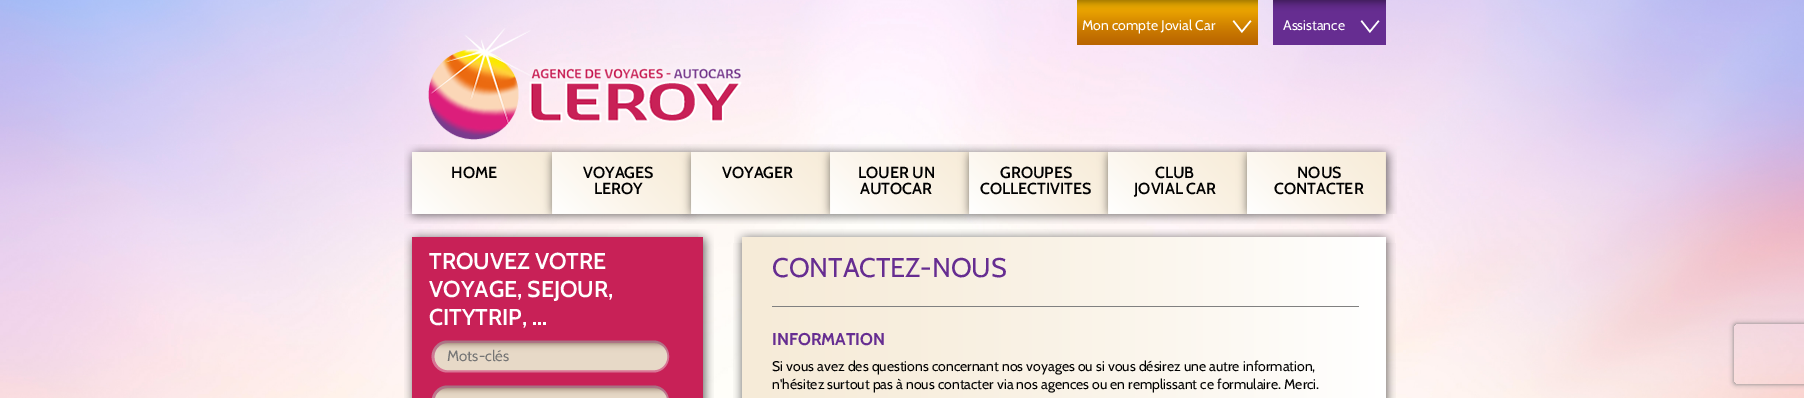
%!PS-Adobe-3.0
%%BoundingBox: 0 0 1804 398
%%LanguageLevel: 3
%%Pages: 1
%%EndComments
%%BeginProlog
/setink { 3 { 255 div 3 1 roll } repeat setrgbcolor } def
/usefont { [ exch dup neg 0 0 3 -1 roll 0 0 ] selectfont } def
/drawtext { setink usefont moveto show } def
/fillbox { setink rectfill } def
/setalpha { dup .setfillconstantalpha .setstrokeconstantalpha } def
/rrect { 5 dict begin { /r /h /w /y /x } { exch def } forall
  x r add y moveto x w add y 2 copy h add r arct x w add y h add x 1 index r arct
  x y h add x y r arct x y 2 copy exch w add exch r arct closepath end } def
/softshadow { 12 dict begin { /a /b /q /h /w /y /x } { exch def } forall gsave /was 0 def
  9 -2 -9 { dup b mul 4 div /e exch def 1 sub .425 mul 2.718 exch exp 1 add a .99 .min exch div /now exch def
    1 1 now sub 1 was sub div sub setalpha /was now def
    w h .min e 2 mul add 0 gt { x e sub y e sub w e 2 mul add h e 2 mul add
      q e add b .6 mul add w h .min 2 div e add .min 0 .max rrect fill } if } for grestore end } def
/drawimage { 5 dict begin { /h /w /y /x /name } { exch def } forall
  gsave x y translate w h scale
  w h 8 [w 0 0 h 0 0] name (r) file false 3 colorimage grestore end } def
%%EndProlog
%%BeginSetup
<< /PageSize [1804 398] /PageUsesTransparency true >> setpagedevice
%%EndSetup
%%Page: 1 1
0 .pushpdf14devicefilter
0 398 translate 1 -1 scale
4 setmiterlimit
0 0 1804 398 255 255 255 fillbox
(assets/img1.rgb) 0 0 1804 398 drawimage
(assets/img2.rgb) 1077 0 181 45 drawimage
(Mon compte Jovial Car) 1082 30 /Cabin-Regular 14 255 255 255 drawtext
(assets/img3.rgb) 1232 20 20 13 drawimage
(assets/img4.rgb) 1273 0 113 45 drawimage
(Assistance) 1283 30 /Cabin-Regular 14 255 255 255 drawtext
(assets/img5.rgb) 1360 20 20 13 drawimage
(assets/img6.rgb) 428 28 314 112 drawimage
(assets/img7.rgb) 404 144 148 70 drawimage
(HOME) 451 178 /Cabin-SemiBold 16 0 0 0 drawtext
(assets/img8.rgb) 552 144 139 70 drawimage
(VOYAGES) 583 178 /Cabin-SemiBold 16 0 0 0 drawtext
(LEROY) 594 194 /Cabin-SemiBold 16 0 0 0 drawtext
(assets/img9.rgb) 691 144 139 70 drawimage
(VOYAGER) 722 178 /Cabin-SemiBold 16 0 0 0 drawtext
(assets/img10.rgb) 830 144 139 70 drawimage
(LOUER UN) 858 178 /Cabin-SemiBold 16 0 0 0 drawtext
(AUTOCAR) 860 194 /Cabin-SemiBold 16 0 0 0 drawtext
(assets/img11.rgb) 969 144 139 70 drawimage
(GROUPES) 1000 178 /Cabin-SemiBold 16 0 0 0 drawtext
(COLLECTIVITES) 980 194 /Cabin-SemiBold 16 0 0 0 drawtext
(assets/img12.rgb) 1108 144 139 70 drawimage
(CLUB) 1155 178 /Cabin-SemiBold 16 0 0 0 drawtext
(JOVIAL CAR) 1134 194 /Cabin-SemiBold 16 0 0 0 drawtext
(assets/img13.rgb) 1247 144 150 70 drawimage
(NOUS) 1297 178 /Cabin-SemiBold 16 0 0 0 drawtext
(CONTACTER) 1274 194 /Cabin-SemiBold 16 0 0 0 drawtext
(assets/img14.rgb) 404 214 989 10 drawimage
(assets/img15.rgb) 404 229 16 169 drawimage
(assets/img16.rgb) 420 229 278 169 drawimage
(TROUVEZ VOTRE) 429 269 /Cabin-SemiBold 23 255 255 255 drawtext
(VOYAGE, SEJOUR,) 429 297 /Cabin-SemiBold 23 255 255 255 drawtext
(CITYTRIP, ...) 429 325 /Cabin-SemiBold 23 255 255 255 drawtext
(assets/img17.rgb) 431 340 239 33 drawimage
(Mots-clés) 447 361 /Cabin-Regular 15 117 117 117 drawtext
(assets/img18.rgb) 432 385 237 13 drawimage
(assets/img19.rgb) 698 229 16 169 drawimage
(assets/img20.rgb) 734 229 661 14 drawimage
(assets/img21.rgb) 733 243 663 155 drawimage
(CONTACTEZ-NOUS) 772 277 /Cabin-Regular 27 102 45 145 drawtext
772 306 587 1 128 128 128 fillbox
(INFORMATION) 772 345 /Cabin-Bold 17 102 45 145 drawtext
(Si vous avez des questions concernant nos voyages ou si vous désirez une autre information,) 772 371 /Cabin-Regular 14 0 0 0 drawtext
(n'hésitez surtout pas à nous contacter via nos agences ou en remplissant ce formulaire. Merci.) 772 389 /Cabin-Regular 14 0 0 0 drawtext
gsave
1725 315 moveto 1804 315 lineto 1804 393 lineto 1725 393 lineto closepath 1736 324 moveto 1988 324 lineto 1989 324 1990 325 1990 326 curveto 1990 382 lineto 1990 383 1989 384 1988 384 curveto 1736 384 lineto 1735 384 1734 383 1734 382 curveto 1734 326 lineto 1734 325 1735 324 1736 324 curveto closepath eoclip newpath
128 128 128 setink
1734 324 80 60 2 2.5 1 softshadow
grestore
.poppdf14devicefilter showpage
%%EOF
